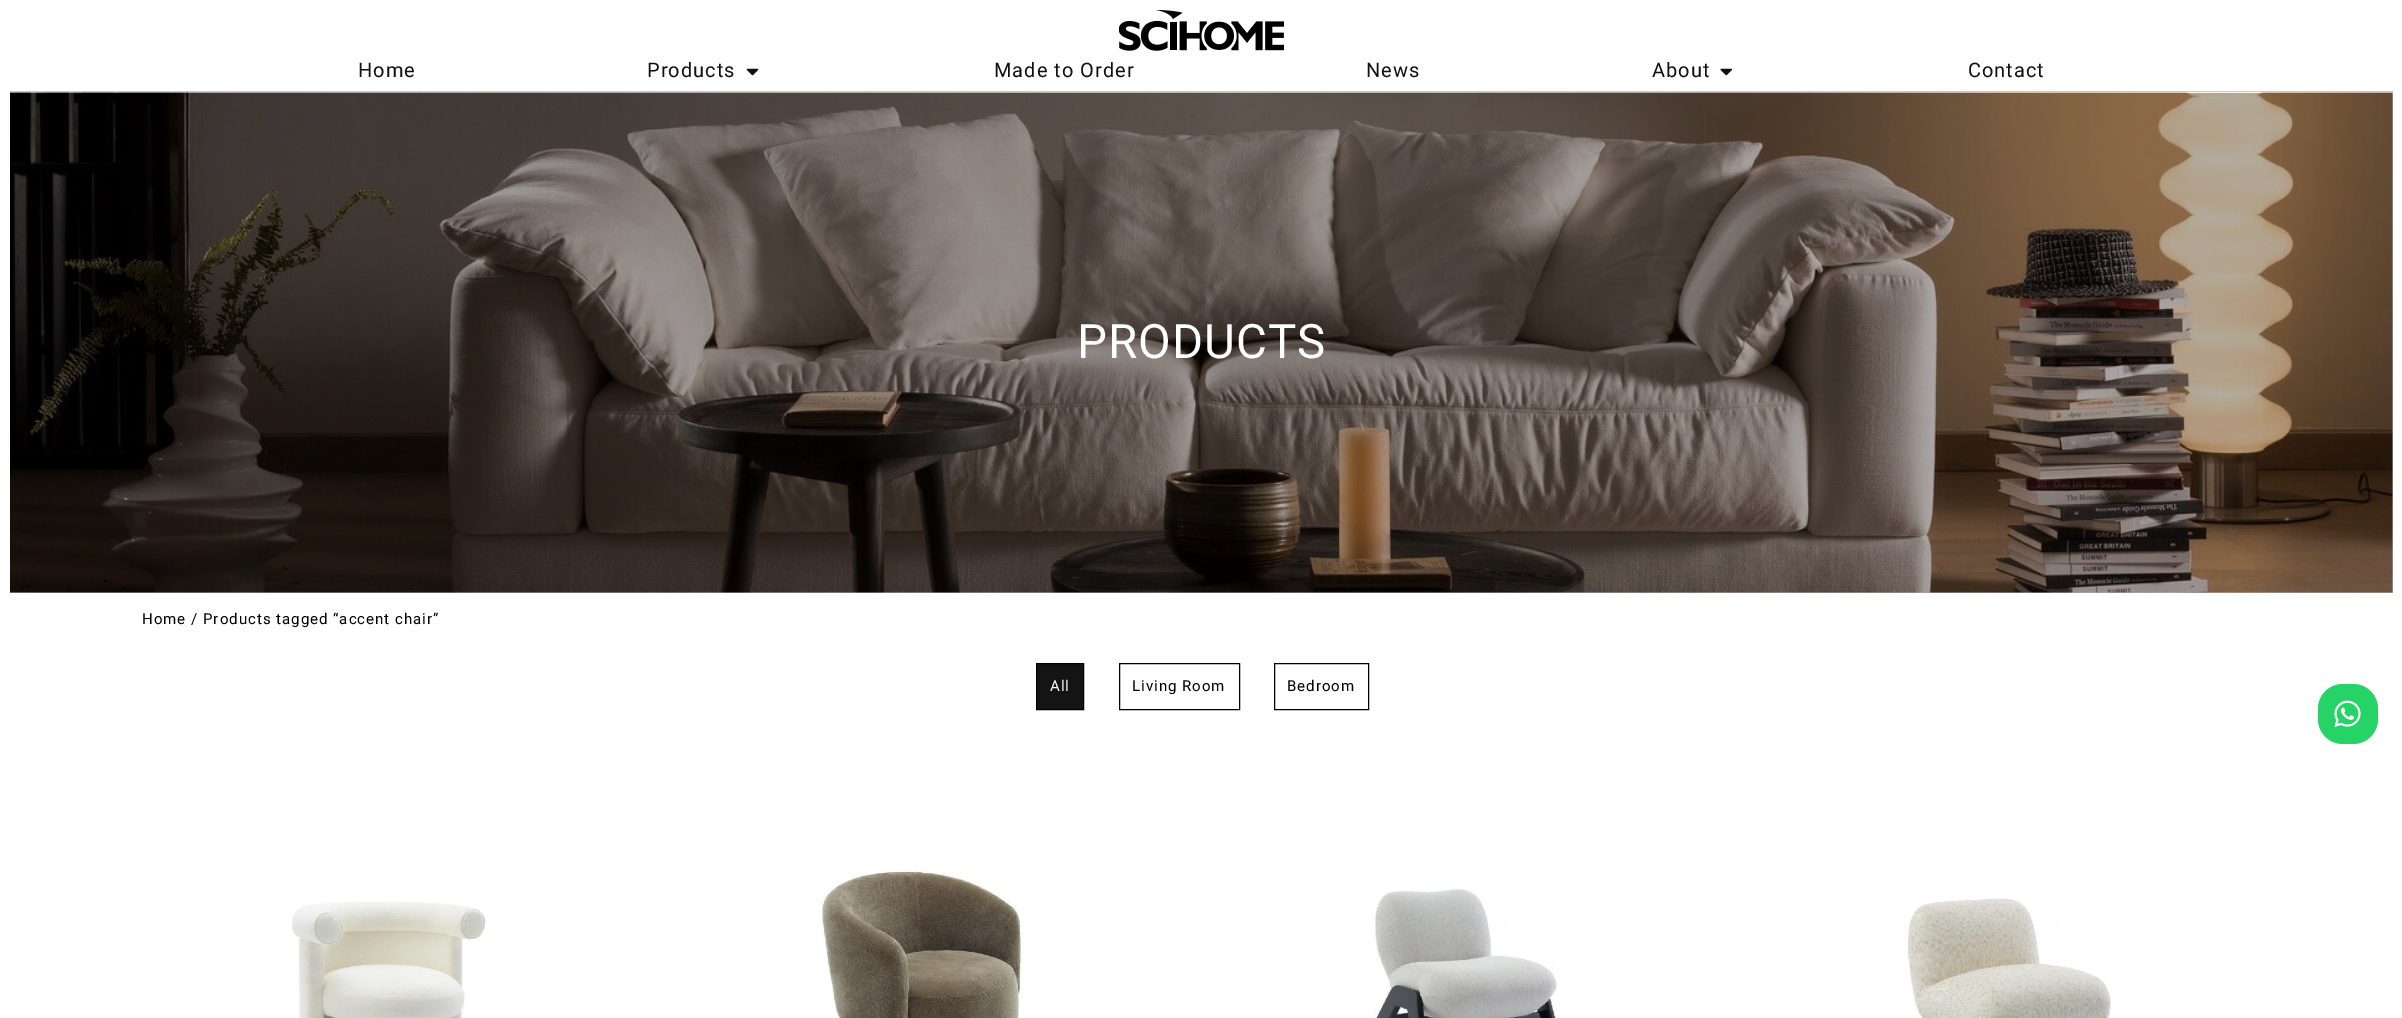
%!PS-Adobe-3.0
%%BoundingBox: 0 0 2402 1018
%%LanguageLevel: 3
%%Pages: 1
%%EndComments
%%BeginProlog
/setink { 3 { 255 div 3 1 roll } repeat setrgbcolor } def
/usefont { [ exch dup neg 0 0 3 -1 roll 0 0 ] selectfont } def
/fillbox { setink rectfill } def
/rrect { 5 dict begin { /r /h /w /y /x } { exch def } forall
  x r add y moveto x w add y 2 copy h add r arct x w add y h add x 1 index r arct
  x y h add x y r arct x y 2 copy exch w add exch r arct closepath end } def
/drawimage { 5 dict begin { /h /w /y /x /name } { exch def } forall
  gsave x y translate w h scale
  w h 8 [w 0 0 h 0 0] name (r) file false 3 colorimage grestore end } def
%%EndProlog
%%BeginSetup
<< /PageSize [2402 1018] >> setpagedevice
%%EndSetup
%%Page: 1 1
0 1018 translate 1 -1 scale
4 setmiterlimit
0 0 2402 1018 255 255 255 fillbox
10 93 2383 500 179 179 179 fillbox
(assets/img1.rgb) 1119 10 165 41 drawimage
/Roboto-Regular 20 usefont
16 16 16 setink
358 77 moveto 1 0 (Home) ashow
647 77 moveto 1 0 (Products) ashow
(assets/img2.rgb) 746 68 13 8 drawimage
994 77 moveto 1 0 (Made to Order) ashow
1366 77 moveto 1 0 (News) ashow
1652 77 moveto 1 0 (About) ashow
(assets/img3.rgb) 1720 68 12 8 drawimage
1968 77 moveto 1 0 (Contact) ashow
10 91 2383 1 202 202 202 fillbox
(assets/img4.rgb) 10 92 2383 501 drawimage
/Roboto-Regular 47.5 usefont
255 255 255 setink
1077 358 moveto 1 0 (PRODUCTS) ashow
/Roboto-Regular 15 usefont
0 0 0 setink
142 624 moveto 1 0 (Home / Products tagged “accent chair”) ashow
20 20 20 setink
1036.5 663.5 moveto 1083.5 663.5 lineto 1083.5 709.5 lineto 1036.5 709.5 lineto closepath gsave fill grestore
0 0 0 setink
stroke
255 255 255 setink
1050 691 moveto 1 0 (All) ashow
0 0 0 setink
1119.5 663.5 120 46 rectstroke
1132 691 moveto 1 0 (Living Room) ashow
1274.5 663.5 94 46 rectstroke
1287 691 moveto 1 0 (Bedroom) ashow
(assets/img5.rgb) 292 901 194 117 drawimage
(assets/img6.rgb) 819 869 205 149 drawimage
(assets/img7.rgb) 1374 888 184 130 drawimage
(assets/img8.rgb) 1905 898 206 120 drawimage
37 211 102 setink
2318 684 60 60 25 rrect fill
(assets/img9.rgb) 2334 700 27 27 drawimage
showpage
%%EOF
